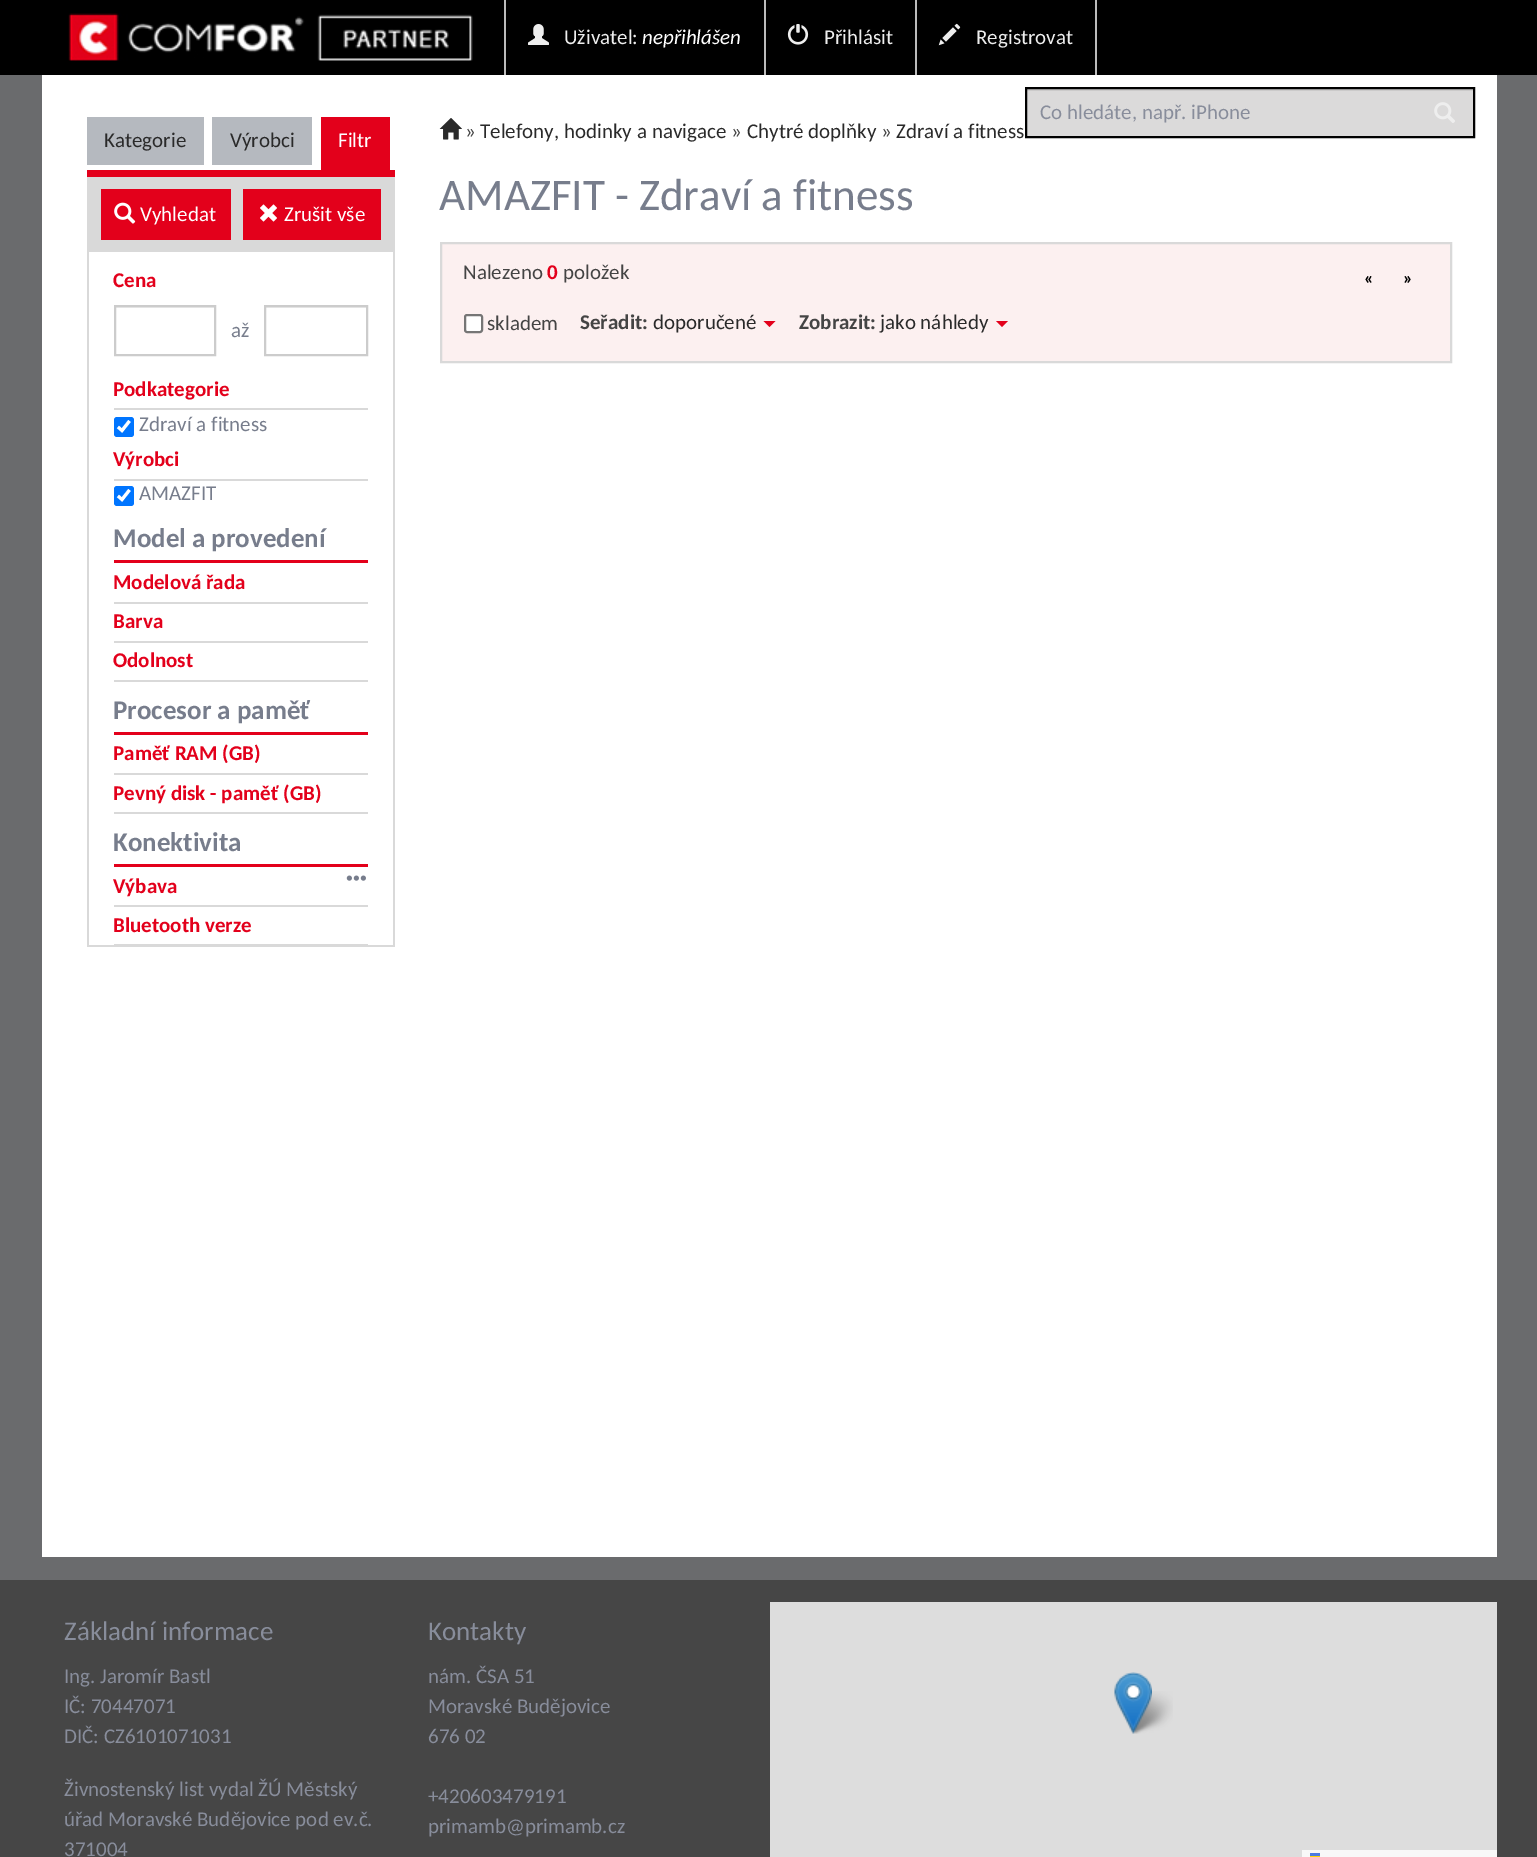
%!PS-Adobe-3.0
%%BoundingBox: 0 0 1537 1857
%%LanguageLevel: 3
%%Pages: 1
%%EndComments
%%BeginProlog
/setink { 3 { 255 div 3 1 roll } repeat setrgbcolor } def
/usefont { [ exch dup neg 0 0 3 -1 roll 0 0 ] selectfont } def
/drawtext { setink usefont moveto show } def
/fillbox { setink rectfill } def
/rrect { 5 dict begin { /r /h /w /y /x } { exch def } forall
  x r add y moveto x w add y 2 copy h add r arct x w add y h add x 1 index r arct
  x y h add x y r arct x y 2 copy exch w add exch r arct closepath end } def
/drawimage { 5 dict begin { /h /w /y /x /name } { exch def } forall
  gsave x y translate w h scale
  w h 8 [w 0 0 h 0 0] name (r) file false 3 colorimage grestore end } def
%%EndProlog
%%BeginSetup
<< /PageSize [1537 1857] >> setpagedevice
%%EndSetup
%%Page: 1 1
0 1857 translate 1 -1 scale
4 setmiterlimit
0 0 1537 1857 106 107 109 fillbox
0 0 1537 75 0 0 0 fillbox
(assets/img1.rgb) 68 13 405 48 drawimage
504 0 2 75 187 187 187 fillbox
(assets/img2.rgb) 528 24 21 21 drawimage
(Uživatel:) 564 44 /Carlito-Regular 21 238 238 238 drawtext
(nepřihlášen) 642 44 /Carlito-Italic 21 255 255 255 drawtext
764 0 2 75 187 187 187 fillbox
(assets/img3.rgb) 787 24 22 21 drawimage
(Přihlásit) 824 44 /Carlito-Regular 21 238 238 238 drawtext
1095 0 2 75 187 187 187 fillbox
915 0 2 75 187 187 187 fillbox
(assets/img4.rgb) 938 23 23 23 drawimage
(Registrovat) 976 44 /Carlito-Regular 21 238 238 238 drawtext
42 75 1455 1482 255 255 255 fillbox
1027 91 446 45 219 218 218 fillbox
1026 89 447 2 203 202 202 fillbox
0 0 0 setink
2 setlinewidth
1026 88 448 49 rectstroke
(Co hledáte, např. iPhone) 1040 119 /Carlito-Regular 21 136 141 155 drawtext
(assets/img5.rgb) 1434 102 21 21 drawimage
87 170 308 7 227 0 27 fillbox
87 117 117 48 181 185 191 fillbox
(Kategorie) 104 147 /Carlito-Regular 21 42 42 42 drawtext
212 117 100 48 181 185 191 fillbox
(Výrobci) 230 147 /Carlito-Regular 21 42 42 42 drawtext
321 117 69 53 227 0 27 fillbox
(Filtr) 338 147 /Carlito-Regular 21 255 255 255 drawtext
393 177 2 770 217 217 217 fillbox
87 945 308 2 217 217 217 fillbox
87 177 2 770 217 217 217 fillbox
89 177 304 75 217 217 217 fillbox
101 189 130 51 227 0 27 fillbox
(assets/img6.rgb) 114 202 22 22 drawimage
(Vyhledat) 140 221 /Carlito-Regular 21 255 255 255 drawtext
243 189 138 51 227 0 27 fillbox
(assets/img7.rgb) 260 204 17 18 drawimage
(Zrušit vše) 284 221 /Carlito-Regular 21 255 255 255 drawtext
(Cena) 113 287 /Carlito-Bold 21 227 0 27 drawtext
116 307 99 1 236 236 236 fillbox
204 204 204 setink
115 306 100 49 rectstroke
(až) 231 337 /Carlito-Regular 21 119 125 140 drawtext
266 307 100 1 236 236 236 fillbox
204 204 204 setink
265 306 102 49 rectstroke
114 408 254 2 217 217 217 fillbox
(Podkategorie) 113 396 /Carlito-Bold 21 227 0 27 drawtext
0 117 255 setink
114 417 20 20 3 rrect fill
255 255 255 setink
3.1 setlinewidth
118 427 moveto 122 430.5 lineto 129.5 421 lineto stroke
(Zdraví a fitness) 139 431 /Carlito-Regular 21 119 125 140 drawtext
114 479 254 2 217 217 217 fillbox
(Výrobci) 113 466 /Carlito-Bold 21 227 0 27 drawtext
0 117 255 setink
114 486 20 20 3 rrect fill
255 255 255 setink
118 496 moveto 122 499.5 lineto 129.5 490 lineto stroke
(AMAZFIT) 139 500 /Carlito-Regular 21 119 125 140 drawtext
114 560 254 3 227 0 27 fillbox
(Model a provedení) 113 547 /Carlito-Bold 27 119 125 140 drawtext
114 602 254 2 217 217 217 fillbox
(Modelová řada) 113 589 /Carlito-Bold 21 227 0 27 drawtext
114 641 254 2 217 217 217 fillbox
(Barva) 113 628 /Carlito-Bold 21 227 0 27 drawtext
114 680 254 2 217 217 217 fillbox
(Odolnost) 113 667 /Carlito-Bold 21 227 0 27 drawtext
114 732 254 3 227 0 27 fillbox
(Procesor a paměť) 113 719 /Carlito-Bold 27 119 125 140 drawtext
114 773 254 2 217 217 217 fillbox
(Paměť RAM \(GB\)) 113 760 /Carlito-Bold 21 227 0 27 drawtext
114 812 254 2 217 217 217 fillbox
(Pevný disk - paměť \(GB\)) 113 800 /Carlito-Bold 21 227 0 27 drawtext
114 864 254 3 227 0 27 fillbox
(Konektivita) 113 851 /Carlito-Bold 27 119 125 140 drawtext
114 905 254 2 217 217 217 fillbox
(Výbava) 113 893 /Carlito-Bold 21 227 0 27 drawtext
(assets/img8.rgb) 346 875 20 6 drawimage
114 944 254 1 217 217 217 fillbox
(Bluetooth verze) 113 932 /Carlito-Bold 21 227 0 27 drawtext
(assets/img9.rgb) 439 118 23 22 drawimage
(») 465 138 /Carlito-Regular 21 68 68 68 drawtext
(Telefony, hodinky a navigace) 480 138 /Carlito-Regular 21 42 42 42 drawtext
(») 731 138 /Carlito-Regular 21 68 68 68 drawtext
(Chytré doplňky) 747 138 /Carlito-Regular 21 42 42 42 drawtext
(») 881 138 /Carlito-Regular 21 68 68 68 drawtext
(Zdraví a fitness) 896 138 /Carlito-Regular 21 42 42 42 drawtext
(AMAZFIT - Zdraví a fitness) 439 210 /Carlito-Regular 45 119 125 140 drawtext
252 240 240 setink
441 243 moveto 1451 243 lineto 1451 362 lineto 441 362 lineto closepath gsave fill grestore
217 217 217 setink
2 setlinewidth
stroke
(Nalezeno) 463 279 /Carlito-Regular 21 68 68 68 drawtext
(0) 547 279 /Carlito-Bold 21 227 0 27 drawtext
(položek) 563 279 /Carlito-Regular 21 68 68 68 drawtext
(«) 1364 284 /Carlito-Bold 18 0 0 0 drawtext
(») 1403 284 /Carlito-Bold 18 0 0 0 drawtext
255 255 255 setink
465 315 17 17 2 rrect gsave fill grestore
118 118 118 setink
stroke
(skladem) 487 330 /Carlito-Regular 21 68 68 68 drawtext
(Seřadit:) 580 329 /Carlito-Bold 21 68 68 68 drawtext
(doporučené) 653 329 /Carlito-Regular 21 42 42 42 drawtext
227 0 27 setink
763.5 321 moveto 775.5 321 lineto 769.5 327 lineto closepath fill
(Zobrazit:) 799 329 /Carlito-Bold 21 68 68 68 drawtext
(jako náhledy) 880 329 /Carlito-Regular 21 42 42 42 drawtext
227 0 27 setink
996 321 moveto 1008 321 lineto 1002 327 lineto closepath fill
0 1580 1537 277 70 70 70 fillbox
(Základní informace) 64 1640 /Carlito-Regular 27 136 141 155 drawtext
(Ing. Jaromír Bastl) 64 1683 /Carlito-Regular 21 136 141 155 drawtext
(IČ: 70447071) 64 1713 /Carlito-Regular 21 136 141 155 drawtext
(DIČ: CZ6101071031) 64 1743 /Carlito-Regular 21 136 141 155 drawtext
(Živnostenský list vydal ŽÚ Městský) 64 1796 /Carlito-Regular 21 136 141 155 drawtext
(úřad Moravské Budějovice pod ev.č.) 64 1826 /Carlito-Regular 21 136 141 155 drawtext
(371004) 64 1856 /Carlito-Regular 21 136 141 155 drawtext
(Kontakty) 428 1640 /Carlito-Regular 27 136 141 155 drawtext
(nám. ČSA 51) 428 1683 /Carlito-Regular 21 136 141 155 drawtext
(Moravské Budějovice) 428 1713 /Carlito-Regular 21 136 141 155 drawtext
(676 02) 428 1743 /Carlito-Regular 21 136 141 155 drawtext
(+420603479191) 428 1803 /Carlito-Regular 21 136 141 155 drawtext
(primamb@primamb.cz) 428 1833 /Carlito-Regular 21 136 141 155 drawtext
770 1602 727 255 221 221 221 fillbox
(assets/img11.rgb) 1128 1691 45 43 drawimage
(assets/img10.rgb) 1114 1672 38 62 drawimage
1302 1850 195 7 248 248 248 fillbox
1310 1853 10 3 76 123 225 fillbox
1310 1856 10 1 255 213 0 fillbox
showpage
%%EOF
